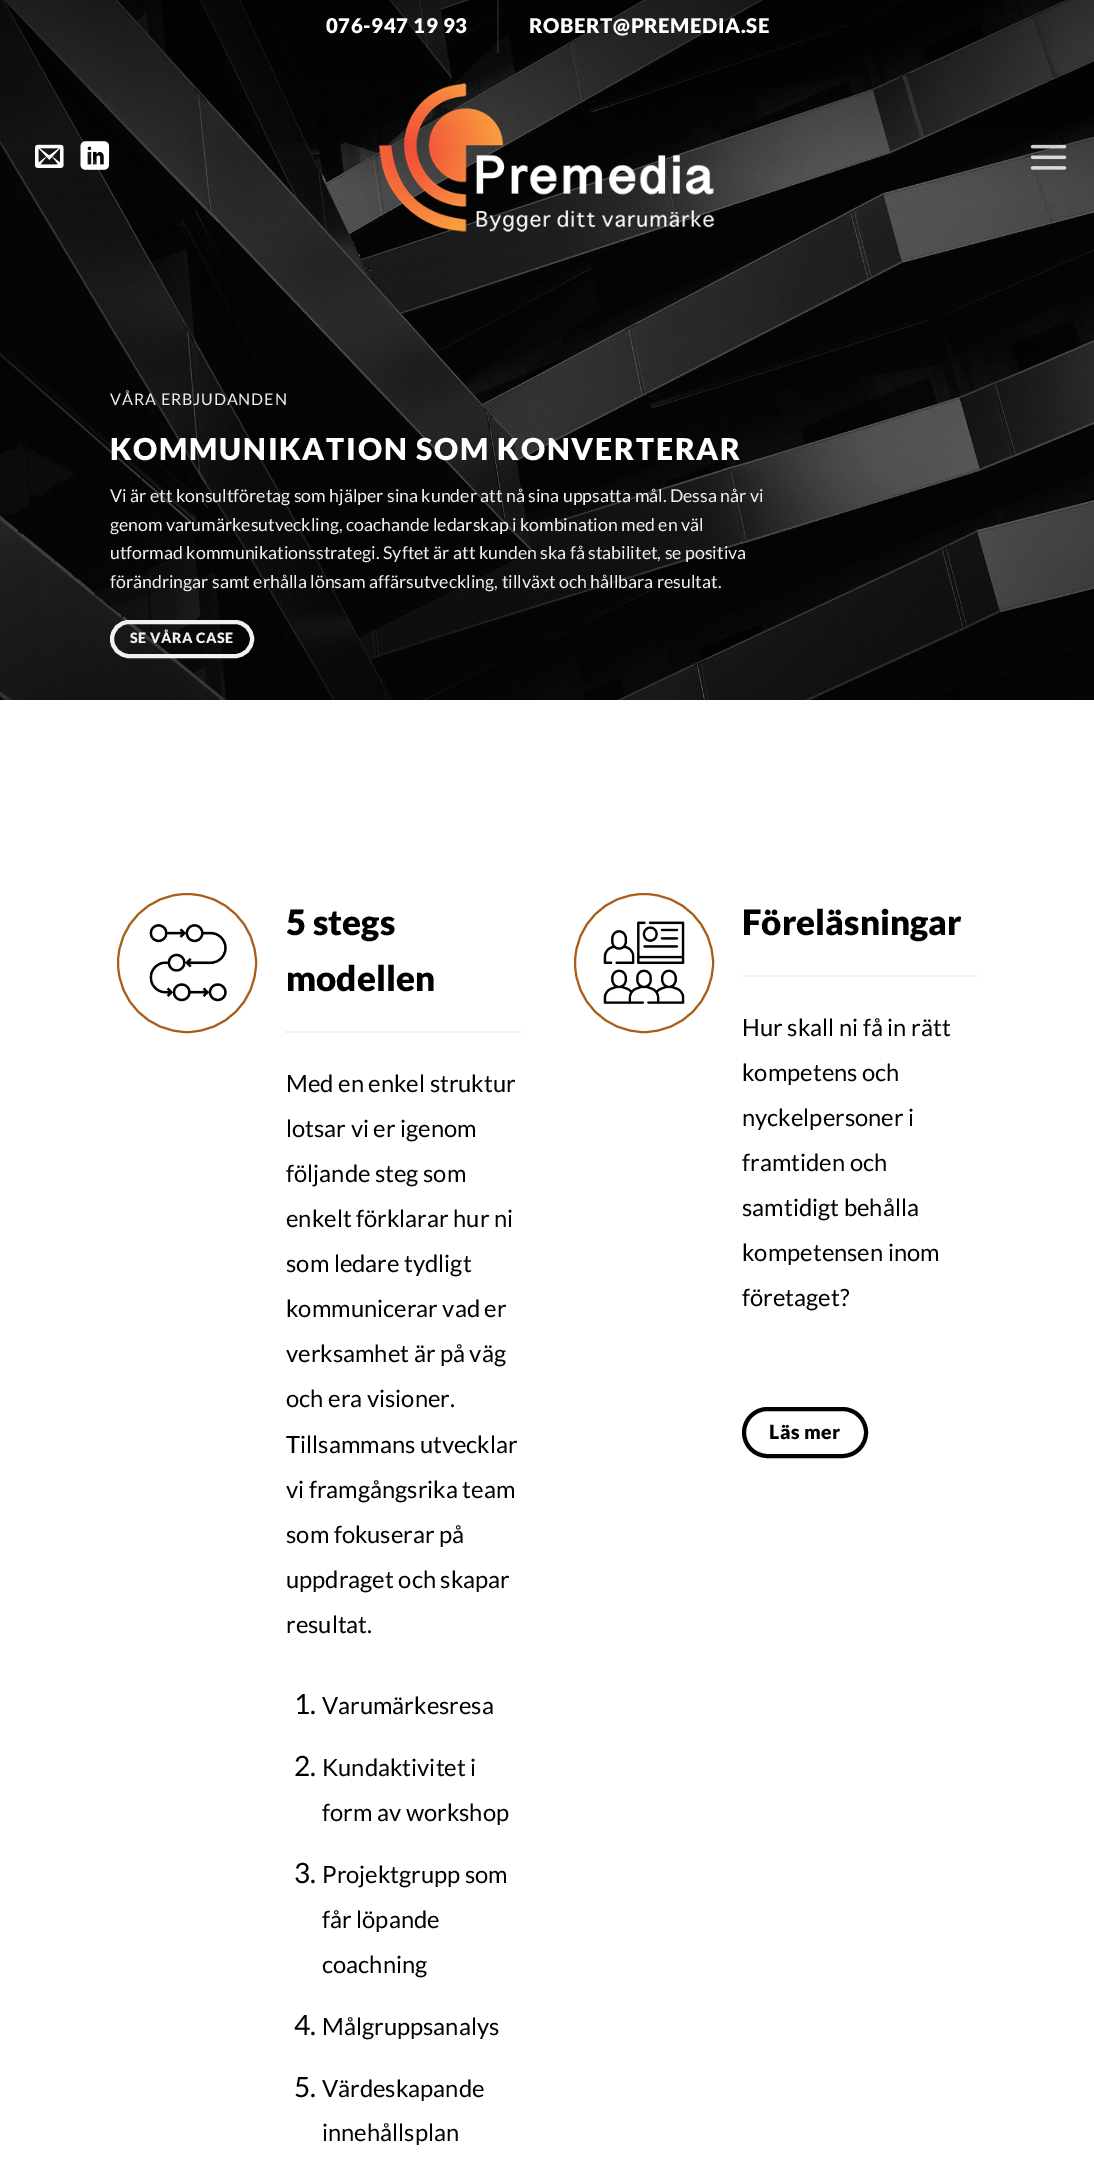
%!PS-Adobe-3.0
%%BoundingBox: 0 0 1094 2159
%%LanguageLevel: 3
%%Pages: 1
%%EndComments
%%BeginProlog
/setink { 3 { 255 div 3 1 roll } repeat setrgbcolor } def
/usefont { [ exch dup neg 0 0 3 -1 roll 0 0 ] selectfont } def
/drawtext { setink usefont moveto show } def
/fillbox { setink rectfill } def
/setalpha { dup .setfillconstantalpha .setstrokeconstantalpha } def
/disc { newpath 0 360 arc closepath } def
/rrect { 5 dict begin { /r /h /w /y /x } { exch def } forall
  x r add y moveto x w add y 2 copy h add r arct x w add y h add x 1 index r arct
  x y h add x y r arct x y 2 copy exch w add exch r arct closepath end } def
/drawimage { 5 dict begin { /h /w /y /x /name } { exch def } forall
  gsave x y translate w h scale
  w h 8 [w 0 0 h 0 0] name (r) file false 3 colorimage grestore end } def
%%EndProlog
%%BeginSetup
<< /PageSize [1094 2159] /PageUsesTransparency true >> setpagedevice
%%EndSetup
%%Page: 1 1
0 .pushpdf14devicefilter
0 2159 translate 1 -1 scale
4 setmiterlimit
0 0 1094 2159 255 255 255 fillbox
(assets/img5.rgb) 0 0 1094 700 drawimage
/Lato-Black 20.4 usefont
326 33 moveto 0.6 0 (076-947 19 93) ashow
0.1 setalpha
497 0 2 53 255 255 255 fillbox
1 setalpha
529 33 moveto 0.6 0 (ROBERT@PREMEDIA.SE) ashow
(assets/img1.rgb) 35 144 29 24 drawimage
(assets/img2.rgb) 80 141 30 29 drawimage
(assets/img3.rgb) 378 83 336 149 drawimage
(assets/img4.rgb) 1030 144 37 26 drawimage
/Lato-Regular 16 usefont
241 241 241 setink
110 405 moveto 0.9 0 (VÅRA ERBJUDANDEN) ashow
/Lato-Black 30.2 usefont
255 255 255 setink
110 460 moveto 1.75 0 (KOMMUNIKATION SOM KONVERTERAR) ashow
(Vi är ett konsultföretag som hjälper sina kunder att nå sina uppsatta mål. Dessa når vi) 110 502 /Lato-Regular 17.75 241 241 241 drawtext
(genom varumärkesutveckling, coachande ledarskap i kombination med en väl) 110 531 /Lato-Regular 17.75 241 241 241 drawtext
(utformad kommunikationsstrategi. Syftet är att kunden ska få stabilitet, se positiva) 110 559 /Lato-Regular 17.75 241 241 241 drawtext
(förändringar samt erhålla lönsam affärsutveckling, tillväxt och hållbara resultat.) 110 588 /Lato-Regular 17.75 241 241 241 drawtext
4 setlinewidth
112 622 140 34 17 rrect stroke
/Lato-Black 14.25 usefont
130 643 moveto 0.5 0 (SE VÅRA CASE) ashow
168 93 27 setink
2 setlinewidth
187 963 69 disc stroke
(assets/img6.rgb) 149 924 78 78 drawimage
(5 stegs) 286 935 /Lato-Black 35 0 0 0 drawtext
(modellen) 286 991 /Lato-Black 35 0 0 0 drawtext
285 1031 237 2 242 242 242 fillbox
(Med en enkel struktur) 286 1092 /Lato-Regular 23.75 0 0 0 drawtext
(lotsar vi er igenom) 286 1137 /Lato-Regular 23.75 0 0 0 drawtext
(följande steg som) 286 1182 /Lato-Regular 23.75 0 0 0 drawtext
(enkelt förklarar hur ni) 286 1227 /Lato-Regular 23.75 0 0 0 drawtext
(som ledare tydligt) 286 1272 /Lato-Regular 23.75 0 0 0 drawtext
(kommunicerar vad er) 286 1317 /Lato-Regular 23.75 0 0 0 drawtext
(verksamhet är på väg) 286 1362 /Lato-Regular 23.75 0 0 0 drawtext
(och era visioner.) 286 1407 /Lato-Regular 23.75 0 0 0 drawtext
(Tillsammans utvecklar) 286 1453 /Lato-Regular 23.75 0 0 0 drawtext
(vi framgångsrika team) 286 1498 /Lato-Regular 23.75 0 0 0 drawtext
(som fokuserar på) 286 1543 /Lato-Regular 23.75 0 0 0 drawtext
(uppdraget och skapar) 286 1588 /Lato-Regular 23.75 0 0 0 drawtext
(resultat.) 286 1633 /Lato-Regular 23.75 0 0 0 drawtext
(1.) 294 1714 /Lato-Regular 28 0 0 0 drawtext
(Varumärkesresa) 322 1714 /Lato-Regular 23.75 0 0 0 drawtext
(2.) 294 1776 /Lato-Regular 28 0 0 0 drawtext
(Kundaktivitet i) 322 1776 /Lato-Regular 23.75 0 0 0 drawtext
(form av workshop) 322 1821 /Lato-Regular 23.75 0 0 0 drawtext
(3.) 294 1883 /Lato-Regular 28 0 0 0 drawtext
(Projektgrupp som) 322 1883 /Lato-Regular 23.75 0 0 0 drawtext
(får löpande) 322 1928 /Lato-Regular 23.75 0 0 0 drawtext
(coachning) 322 1973 /Lato-Regular 23.75 0 0 0 drawtext
(4.) 294 2035 /Lato-Regular 28 0 0 0 drawtext
(Målgruppsanalys) 322 2035 /Lato-Regular 23.75 0 0 0 drawtext
(5.) 294 2097 /Lato-Regular 28 0 0 0 drawtext
(Värdeskapande) 322 2097 /Lato-Regular 23.75 0 0 0 drawtext
(innehållsplan) 322 2141 /Lato-Regular 23.75 0 0 0 drawtext
168 93 27 setink
644 963 69 disc stroke
(assets/img7.rgb) 603 921 82 83 drawimage
(Föreläsningar) 742 935 /Lato-Black 35 0 0 0 drawtext
742 975 236 2 242 242 242 fillbox
(Hur skall ni få in rätt) 742 1036 /Lato-Regular 23.75 0 0 0 drawtext
(kompetens och) 742 1081 /Lato-Regular 23.75 0 0 0 drawtext
(nyckelpersoner i) 742 1126 /Lato-Regular 23.75 0 0 0 drawtext
(framtiden och) 742 1171 /Lato-Regular 23.75 0 0 0 drawtext
(samtidigt behålla) 742 1216 /Lato-Regular 23.75 0 0 0 drawtext
(kompetensen inom) 742 1261 /Lato-Regular 23.75 0 0 0 drawtext
(företaget?) 742 1306 /Lato-Regular 23.75 0 0 0 drawtext
4 setlinewidth
744 1409 122 47 23.5 rrect stroke
/Lato-Black 19.5 usefont
769 1439 moveto 0.5 0 (Läs mer) ashow
.poppdf14devicefilter showpage
%%EOF
